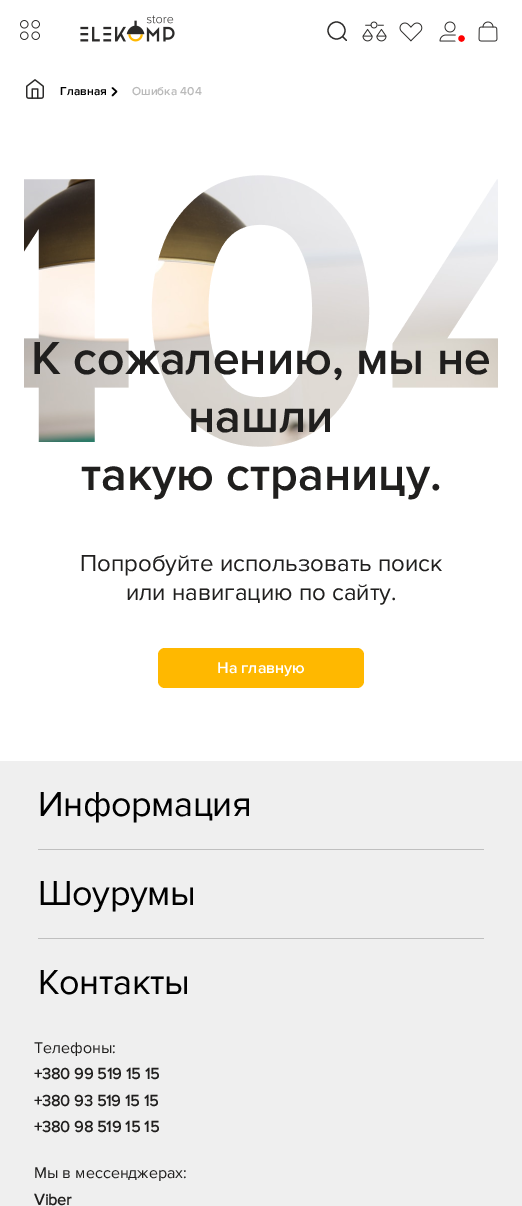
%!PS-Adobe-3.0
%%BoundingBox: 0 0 522 1206
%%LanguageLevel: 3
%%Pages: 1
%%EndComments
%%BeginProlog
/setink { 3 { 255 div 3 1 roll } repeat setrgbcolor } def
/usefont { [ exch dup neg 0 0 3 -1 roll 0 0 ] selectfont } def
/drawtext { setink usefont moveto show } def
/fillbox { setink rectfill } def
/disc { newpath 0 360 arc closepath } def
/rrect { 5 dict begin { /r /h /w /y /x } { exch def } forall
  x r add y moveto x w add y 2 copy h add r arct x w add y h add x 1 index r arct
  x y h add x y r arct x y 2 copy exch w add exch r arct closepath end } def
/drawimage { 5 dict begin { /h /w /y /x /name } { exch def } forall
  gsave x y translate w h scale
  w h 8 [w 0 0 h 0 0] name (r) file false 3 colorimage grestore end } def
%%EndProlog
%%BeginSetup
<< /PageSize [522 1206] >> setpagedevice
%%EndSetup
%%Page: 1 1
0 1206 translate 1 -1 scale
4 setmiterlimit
0 0 522 1206 255 255 255 fillbox
(assets/img1.rgb) 20 20 20 20 drawimage
(assets/img2.rgb) 80 15 95 27 drawimage
43 42 41 setink
1.2 setlinewidth
336.5 30.5 8.5 disc stroke
1 setlinecap
346.5 40.5 moveto 342.5 36.5 lineto stroke
(assets/img3.rgb) 362 21 25 21 drawimage
(assets/img4.rgb) 399 22 24 20 drawimage
(assets/img5.rgb) 439 21 18 21 drawimage
255 0 0 setink
461.5 38.5 5 disc gsave fill grestore
255 255 255 setink
3 setlinewidth
0 setlinecap
stroke
(assets/img6.rgb) 478 21 20 21 drawimage
(assets/img7.rgb) 26 79 18 20 drawimage
(Главная) 60 95 /ProximaNova-SemiBold 12 0 0 0 drawtext
1.5 setlinewidth
1 setlinecap
1 setlinejoin
112.5 88 moveto 116.5 91.5 lineto 112.5 95.5 lineto stroke
(Ошибка 404) 132 95 /ProximaNova-SemiBold 12 186 186 186 drawtext
(assets/img8.rgb) 24 175 474 272 drawimage
(К сожалению, мы не) 31 374 /ProximaNova-SemiBold 48 32 31 30 drawtext
(нашли) 188 432 /ProximaNova-SemiBold 48 32 31 30 drawtext
(такую страницу.) 81 490 /ProximaNova-SemiBold 48 32 31 30 drawtext
(Попробуйте использовать поиск) 80 571 /ProximaNova-Regular 24 32 31 30 drawtext
(или навигацию по сайту.) 126 600 /ProximaNova-Regular 24 32 31 30 drawtext
255 184 0 setink
158 648 206 40 7 rrect fill
(На главную) 217 673 /ProximaNova-SemiBold 16 255 255 255 drawtext
0 761 522 445 239 239 239 fillbox
38 849 446 1 191 191 191 fillbox
/ProximaNova-Regular 36 usefont
0 0 0 setink
38 816 moveto -0.4 0 (Информация) ashow
38 938 446 1 191 191 191 fillbox
0 0 0 setink
38 905 moveto -0.4 0 (Шоурумы) ashow
38 994 moveto -0.4 0 (Контакты) ashow
(Телефоны:) 34 1053 /ProximaNova-Regular 16 32 31 30 drawtext
(+380 99 519 15 15) 34 1079 /ProximaNova-Bold 16 32 31 30 drawtext
(+380 93 519 15 15) 34 1106 /ProximaNova-Bold 16 32 31 30 drawtext
(+380 98 519 15 15) 34 1132 /ProximaNova-Bold 16 32 31 30 drawtext
(Мы в мессенджерах:) 34 1178 /ProximaNova-Regular 16 32 31 30 drawtext
(Viber) 34 1205 /ProximaNova-Bold 16 32 31 30 drawtext
showpage
%%EOF
